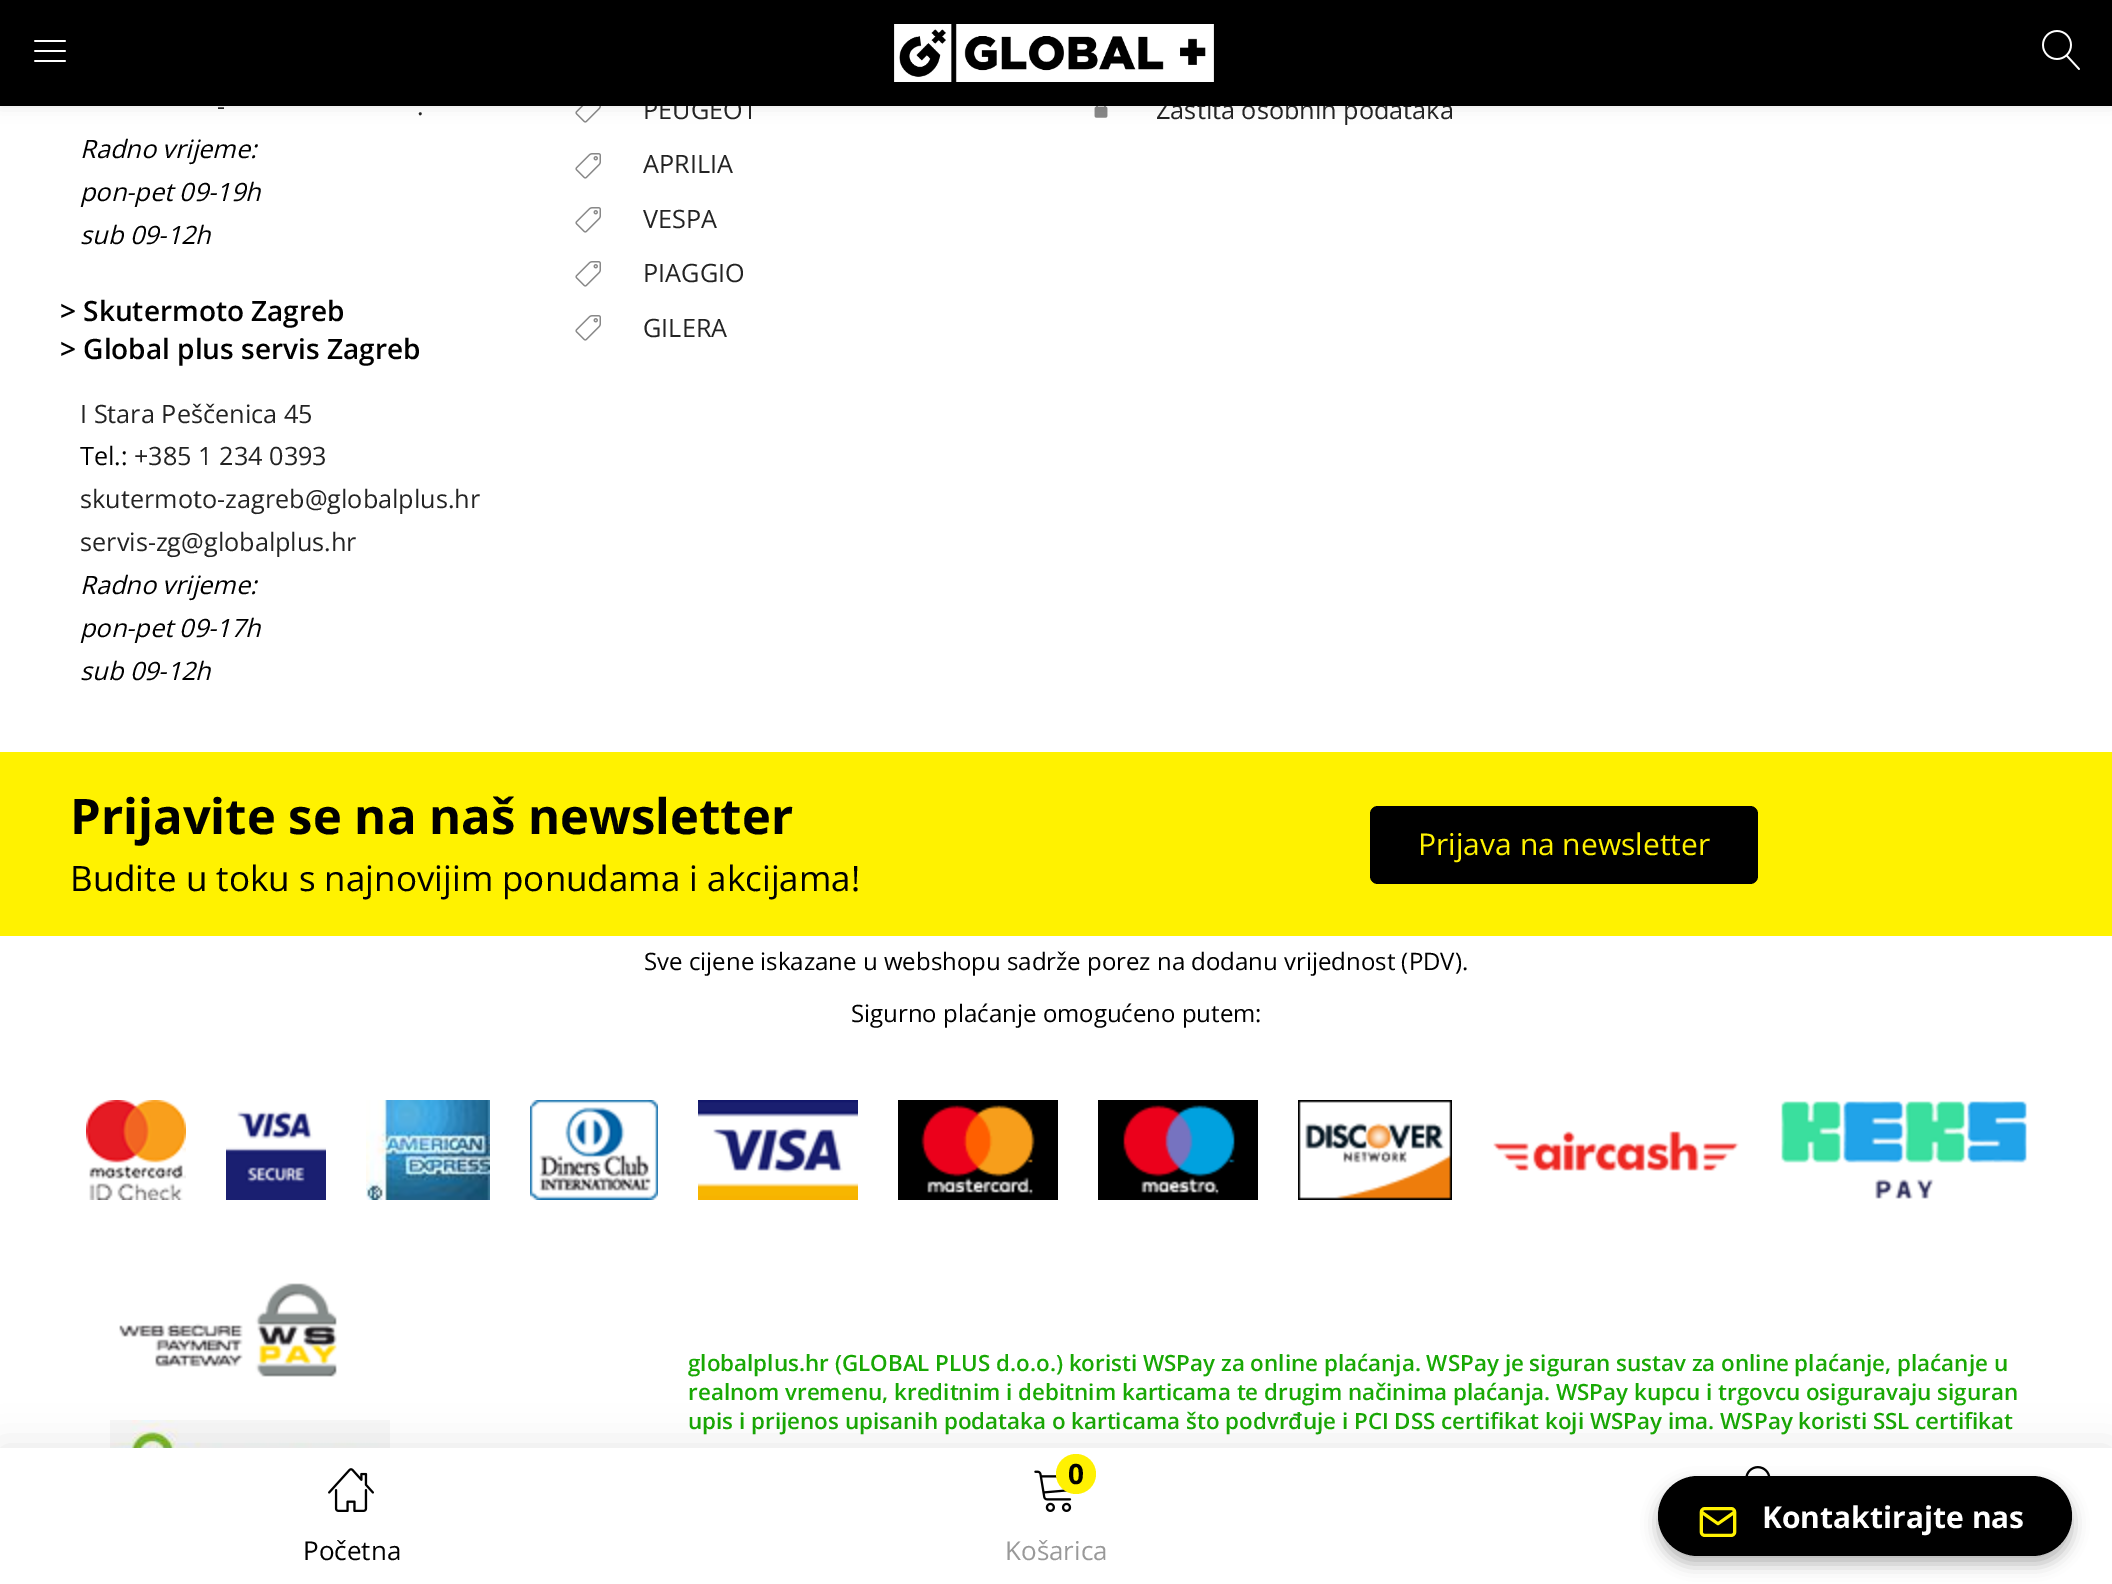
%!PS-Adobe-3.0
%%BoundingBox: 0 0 2112 1584
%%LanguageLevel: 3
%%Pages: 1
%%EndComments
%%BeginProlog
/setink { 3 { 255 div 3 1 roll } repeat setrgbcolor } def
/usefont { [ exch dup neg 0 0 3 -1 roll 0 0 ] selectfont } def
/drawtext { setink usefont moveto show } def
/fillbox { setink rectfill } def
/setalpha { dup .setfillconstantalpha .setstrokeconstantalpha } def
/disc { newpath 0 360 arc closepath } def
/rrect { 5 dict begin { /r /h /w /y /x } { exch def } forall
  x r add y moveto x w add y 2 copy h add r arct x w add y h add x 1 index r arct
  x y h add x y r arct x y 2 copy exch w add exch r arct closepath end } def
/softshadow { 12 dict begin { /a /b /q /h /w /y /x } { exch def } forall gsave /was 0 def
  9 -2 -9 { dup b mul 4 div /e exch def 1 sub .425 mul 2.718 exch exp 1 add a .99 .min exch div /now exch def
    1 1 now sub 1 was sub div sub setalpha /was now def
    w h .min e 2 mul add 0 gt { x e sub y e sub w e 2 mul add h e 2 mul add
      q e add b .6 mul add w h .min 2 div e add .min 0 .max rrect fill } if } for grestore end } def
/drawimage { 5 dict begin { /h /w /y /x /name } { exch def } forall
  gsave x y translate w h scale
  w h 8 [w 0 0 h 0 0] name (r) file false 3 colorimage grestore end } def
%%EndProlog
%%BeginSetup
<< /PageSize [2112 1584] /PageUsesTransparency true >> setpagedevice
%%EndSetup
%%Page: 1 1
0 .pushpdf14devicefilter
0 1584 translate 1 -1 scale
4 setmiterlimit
0 0 2112 1584 255 255 255 fillbox
(assets/img4.rgb) 575 106 26 17 drawimage
(assets/img6.rgb) 1094 106 14 12 drawimage
0 0 0 setink
0 0 2112 106 0 8 0.1 softshadow
(PEUGEOT) 643 119 /OpenSans-Regular 25.25 35 35 35 drawtext
(Zaštita osobnih podataka) 1156 119 /OpenSans-Regular 25.25 35 35 35 drawtext
0 0 2112 106 0 0 0 fillbox
(assets/img1.rgb) 34 40 32 22 drawimage
(assets/img2.rgb) 894 24 320 58 drawimage
(assets/img3.rgb) 2042 30 38 40 drawimage
(-) 217 115 /OpenSans-Regular 25.25 35 35 35 drawtext
(.) 417 115 /OpenSans-Regular 25.25 35 35 35 drawtext
(Radno vrijeme:) 80 158 /OpenSans-Italic 25.25 0 0 0 drawtext
(pon-pet 09-19h) 80 201 /OpenSans-Italic 25.25 0 0 0 drawtext
(sub 09-12h) 80 244 /OpenSans-Italic 25.25 0 0 0 drawtext
(> Skutermoto Zagreb) 60 321 /OpenSans-SemiBold 28 0 0 0 drawtext
(> Global plus servis Zagreb) 60 359 /OpenSans-SemiBold 28 0 0 0 drawtext
(I Stara Peščenica 45) 80 423 /OpenSans-Regular 25.25 35 35 35 drawtext
(Tel.:) 80 465 /OpenSans-Regular 25.25 0 0 0 drawtext
(+385 1 234 0393) 134 465 /OpenSans-Regular 25.25 35 35 35 drawtext
(skutermoto-zagreb@globalplus.hr) 80 508 /OpenSans-Regular 25.25 35 35 35 drawtext
(servis-zg@globalplus.hr) 80 551 /OpenSans-Regular 25.25 35 35 35 drawtext
(Radno vrijeme:) 80 594 /OpenSans-Italic 25.25 0 0 0 drawtext
(pon-pet 09-17h) 80 637 /OpenSans-Italic 25.25 0 0 0 drawtext
(sub 09-12h) 80 680 /OpenSans-Italic 25.25 0 0 0 drawtext
(assets/img5.rgb) 575 153 26 26 drawimage
(APRILIA) 643 173 /OpenSans-Regular 25.25 35 35 35 drawtext
(assets/img5.rgb) 575 207 26 26 drawimage
(VESPA) 643 228 /OpenSans-Regular 25.25 35 35 35 drawtext
(assets/img5.rgb) 575 261 26 26 drawimage
(PIAGGIO) 643 282 /OpenSans-Regular 25.25 35 35 35 drawtext
(assets/img5.rgb) 575 315 26 26 drawimage
(GILERA) 643 337 /OpenSans-Regular 25.25 35 35 35 drawtext
0 752 2112 184 255 242 0 fillbox
(Prijavite se na naš newsletter) 70 834 /OpenSans-Bold 49 0 0 0 drawtext
(Budite u toku s najnovijim ponudama i akcijama!) 70 891 /OpenSans-Regular 35 0 0 0 drawtext
1370 806 388 78 8 rrect fill
(Prijava na newsletter) 1418 855 /OpenSans-Regular 30 255 242 0 drawtext
(Sve cijene iskazane u webshopu sadrže porez na dodanu vrijednost \(PDV\).) 644 970 /OpenSans-Regular 24 0 0 0 drawtext
(Sigurno plaćanje omogućeno putem:) 851 1022 /OpenSans-Regular 24 0 0 0 drawtext
(assets/img7.rgb) 86 1100 100 100 drawimage
(assets/img8.rgb) 226 1111 100 89 drawimage
(assets/img9.rgb) 366 1100 124 100 drawimage
(assets/img10.rgb) 530 1100 128 100 drawimage
(assets/img11.rgb) 698 1100 160 100 drawimage
(assets/img12.rgb) 898 1100 160 100 drawimage
(assets/img13.rgb) 1098 1100 160 100 drawimage
(assets/img14.rgb) 1298 1100 154 100 drawimage
(assets/img15.rgb) 1493 1131 246 40 drawimage
(assets/img16.rgb) 1781 1101 246 98 drawimage
(assets/img17.rgb) 119 1283 218 94 drawimage
(assets/img18.rgb) 110 1420 280 28 drawimage
(globalplus.hr \(GLOBAL PLUS d.o.o.\) koristi WSPay za online plaćanja. WSPay je siguran sustav za online plaćanje, plaćanje u) 688 1371 /OpenSans-SemiBold 22.4 24 168 4 drawtext
(realnom vremenu, kreditnim i debitnim karticama te drugim načinima plaćanja. WSPay kupcu i trgovcu osiguravaju siguran) 688 1400 /OpenSans-SemiBold 22.4 24 168 4 drawtext
(upis i prijenos upisanih podataka o karticama što podvrđuje i PCI DSS certifikat koji WSPay ima. WSPay koristi SSL certifikat) 688 1429 /OpenSans-SemiBold 22.4 24 168 4 drawtext
0 0 0 setink
0 1448 2112 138 0 20 0.1 softshadow
0 1448 2112 136 255 255 255 fillbox
(assets/img19.rgb) 1034 1470 38 42 drawimage
255 241 2 setink
1076 1474 20 disc fill
(0) 1068 1484 /OpenSans-Bold 28 0 0 0 drawtext
(Košarica) 1005 1560 /OpenSans-Regular 26 153 153 153 drawtext
(assets/img20.rgb) 1745 1466 26 10 drawimage
(assets/img21.rgb) 328 1468 46 44 drawimage
(Početna) 303 1560 /OpenSans-Regular 26 0 0 0 drawtext
1658 1484 414 80 40 8 0.28 softshadow
1658 1476 414 80 40 rrect fill
(assets/img22.rgb) 1699 1507 38 30 drawimage
(Kontaktirajte nas) 1762 1528 /OpenSans-Bold 30 255 255 255 drawtext
.poppdf14devicefilter showpage
%%EOF
